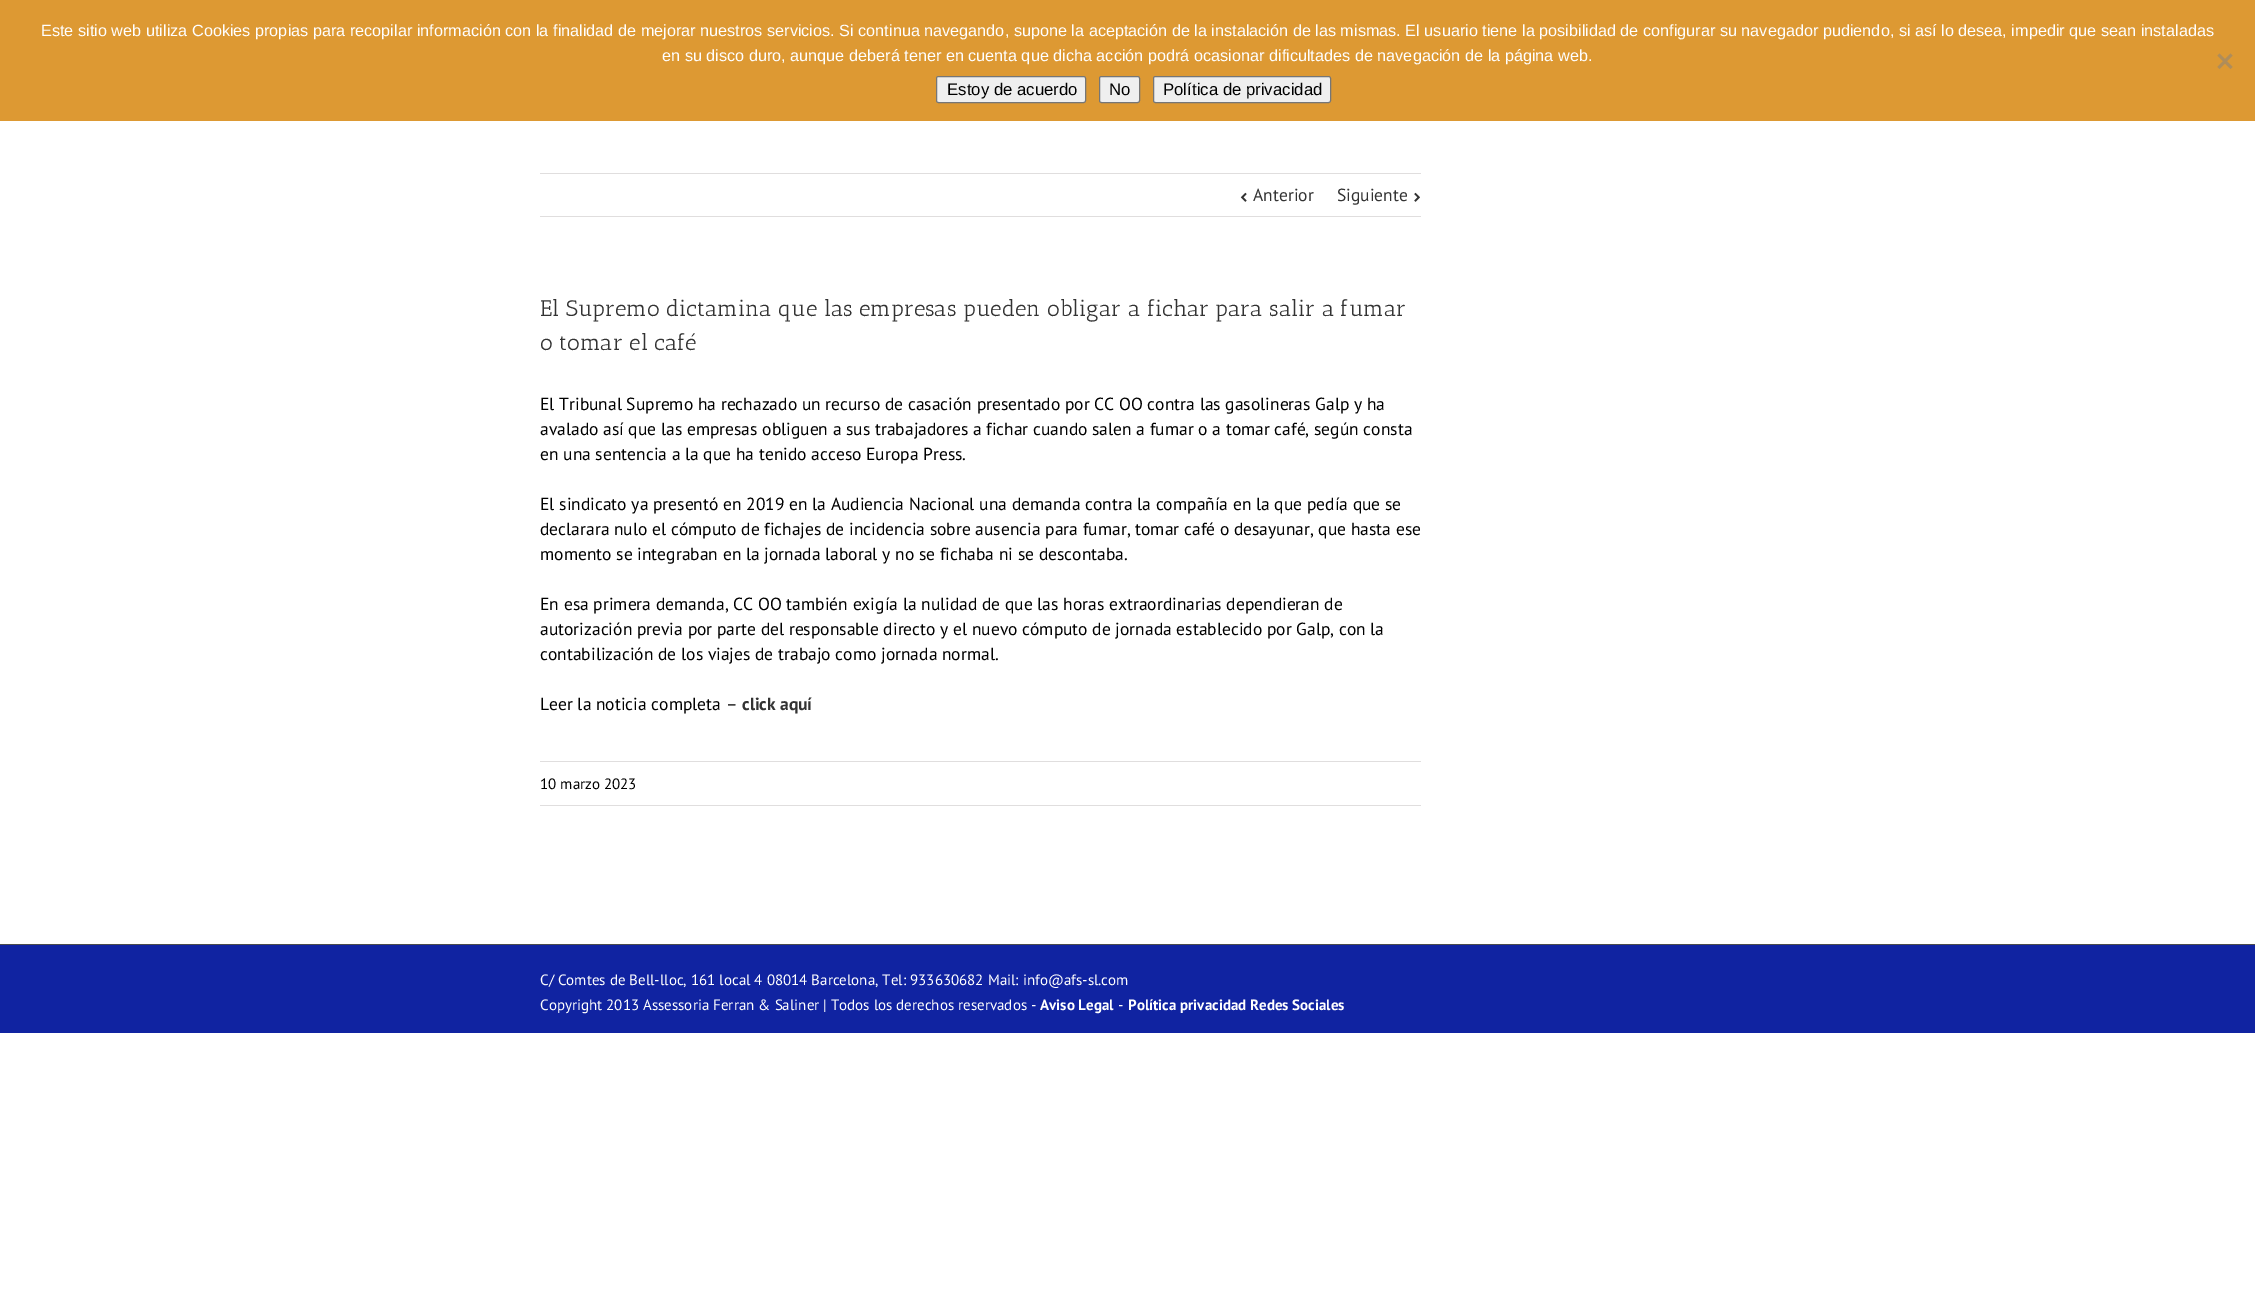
%!PS-Adobe-3.0
%%BoundingBox: 0 0 2255 1303
%%LanguageLevel: 3
%%Pages: 1
%%EndComments
%%BeginProlog
/setink { 3 { 255 div 3 1 roll } repeat setrgbcolor } def
/usefont { [ exch dup neg 0 0 3 -1 roll 0 0 ] selectfont } def
/drawtext { setink usefont moveto show } def
/fillbox { setink rectfill } def
/rrect { 5 dict begin { /r /h /w /y /x } { exch def } forall
  x r add y moveto x w add y 2 copy h add r arct x w add y h add x 1 index r arct
  x y h add x y r arct x y 2 copy exch w add exch r arct closepath end } def
/drawimage { 5 dict begin { /h /w /y /x /name } { exch def } forall
  gsave x y translate w h scale
  w h 8 [w 0 0 h 0 0] name (r) file false 3 colorimage grestore end } def
%%EndProlog
%%BeginSetup
<< /PageSize [2255 1303] >> setpagedevice
%%EndSetup
%%Page: 1 1
0 1303 translate 1 -1 scale
4 setmiterlimit
0 0 2255 1303 255 255 255 fillbox
0 0 2255 121 221 153 51 fillbox
(Este sitio web utiliza Cookies propias para recopilar información con la finalidad de mejorar nuestros servicios. Si continua navegando, supone la aceptación de la instalación de las mismas. El usuario tiene la posibilidad de configurar su navegador pudiendo, si así lo desea, impedir que sean instaladas) 41 36 /LiberationSans-Regular 16.25 255 255 255 drawtext
(en su disco duro, aunque deberá tener en cuenta que dicha acción podrá ocasionar dificultades de navegación de la página web.) 662 61 /LiberationSans-Regular 16.25 255 255 255 drawtext
175 141 90 setink
2230.5 53.5 moveto 2232.5 55.5 lineto 2219.5 69 lineto 2217.5 67 lineto closepath fill
2217.5 55.5 moveto 2219.5 53.5 lineto 2232.5 67 lineto 2230.5 69 lineto closepath fill
239 239 239 setink
936.5 76.5 149 26 2 rrect gsave fill grestore
118 118 118 setink
stroke
(Estoy de acuerdo) 947 95 /LiberationSans-Regular 16.75 0 0 0 drawtext
239 239 239 setink
1099.5 76.5 40 26 2 rrect gsave fill grestore
118 118 118 setink
stroke
(No) 1109 95 /LiberationSans-Regular 16.75 0 0 0 drawtext
239 239 239 setink
1153.5 76.5 177 26 2 rrect gsave fill grestore
118 118 118 setink
stroke
(Política de privacidad) 1163 95 /LiberationSans-Regular 16.75 0 0 0 drawtext
540 173 881 1 224 222 222 fillbox
540 216 881 1 224 222 222 fillbox
(assets/img1.rgb) 1240 192 7 10 drawimage
(Anterior) 1253 201 /PTSans-Regular 17.5 51 51 51 drawtext
(Siguiente) 1337 201 /PTSans-Regular 17.5 51 51 51 drawtext
(assets/img2.rgb) 1414 192 6 10 drawimage
(El Supremo dictamina que las empresas pueden obligar a fichar para salir a fumar) 540 316 /AnticSlab-Regular 22.5 51 51 51 drawtext
(o tomar el café) 540 350 /AnticSlab-Regular 22.5 51 51 51 drawtext
(El Tribunal Supremo ha rechazado un recurso de casación presentado por CC OO contra las gasolineras Galp y ha) 540 410 /PTSans-Regular 17.5 0 0 0 drawtext
(avalado así que las empresas obliguen a sus trabajadores a fichar cuando salen a fumar o a tomar café, según consta) 540 435 /PTSans-Regular 17.5 0 0 0 drawtext
(en una sentencia a la que ha tenido acceso Europa Press.) 540 460 /PTSans-Regular 17.5 0 0 0 drawtext
(El sindicato ya presentó en 2019 en la Audiencia Nacional una demanda contra la compañía en la que pedía que se) 540 510 /PTSans-Regular 17.5 0 0 0 drawtext
(declarara nulo el cómputo de fichajes de incidencia sobre ausencia para fumar, tomar café o desayunar, que hasta ese) 540 535 /PTSans-Regular 17.5 0 0 0 drawtext
(momento se integraban en la jornada laboral y no se fichaba ni se descontaba.) 540 560 /PTSans-Regular 17.5 0 0 0 drawtext
(En esa primera demanda, CC OO también exigía la nulidad de que las horas extraordinarias dependieran de) 540 610 /PTSans-Regular 17.5 0 0 0 drawtext
(autorización previa por parte del responsable directo y el nuevo cómputo de jornada establecido por Galp, con la) 540 635 /PTSans-Regular 17.5 0 0 0 drawtext
(contabilización de los viajes de trabajo como jornada normal.) 540 660 /PTSans-Regular 17.5 0 0 0 drawtext
(Leer la noticia completa –) 540 710 /PTSans-Regular 17.5 0 0 0 drawtext
(click aquí) 742 710 /PTSans-Bold 17.5 51 51 51 drawtext
540 761 881 1 224 222 222 fillbox
540 805 881 1 224 222 222 fillbox
(10 marzo 2023) 540 789 /PTSans-Regular 15 0 0 0 drawtext
0 945 2255 88 16 35 161 fillbox
0 944 2255 1 75 76 77 fillbox
(C/ Comtes de Bell-lloc, 161 local 4 08014 Barcelona, Tel: 933630682 Mail: info@afs-sl.com) 540 985 /PTSans-Regular 15 255 255 255 drawtext
(Copyright 2013 Assessoria Ferran & Saliner | Todos los derechos reservados -) 540 1010 /PTSans-Regular 15 255 255 255 drawtext
(Aviso Legal) 1040 1010 /PTSans-Bold 15 255 255 255 drawtext
(-) 1118 1010 /PTSans-Regular 15 255 255 255 drawtext
(Política privacidad Redes Sociales) 1128 1010 /PTSans-Bold 15 255 255 255 drawtext
showpage
%%EOF
